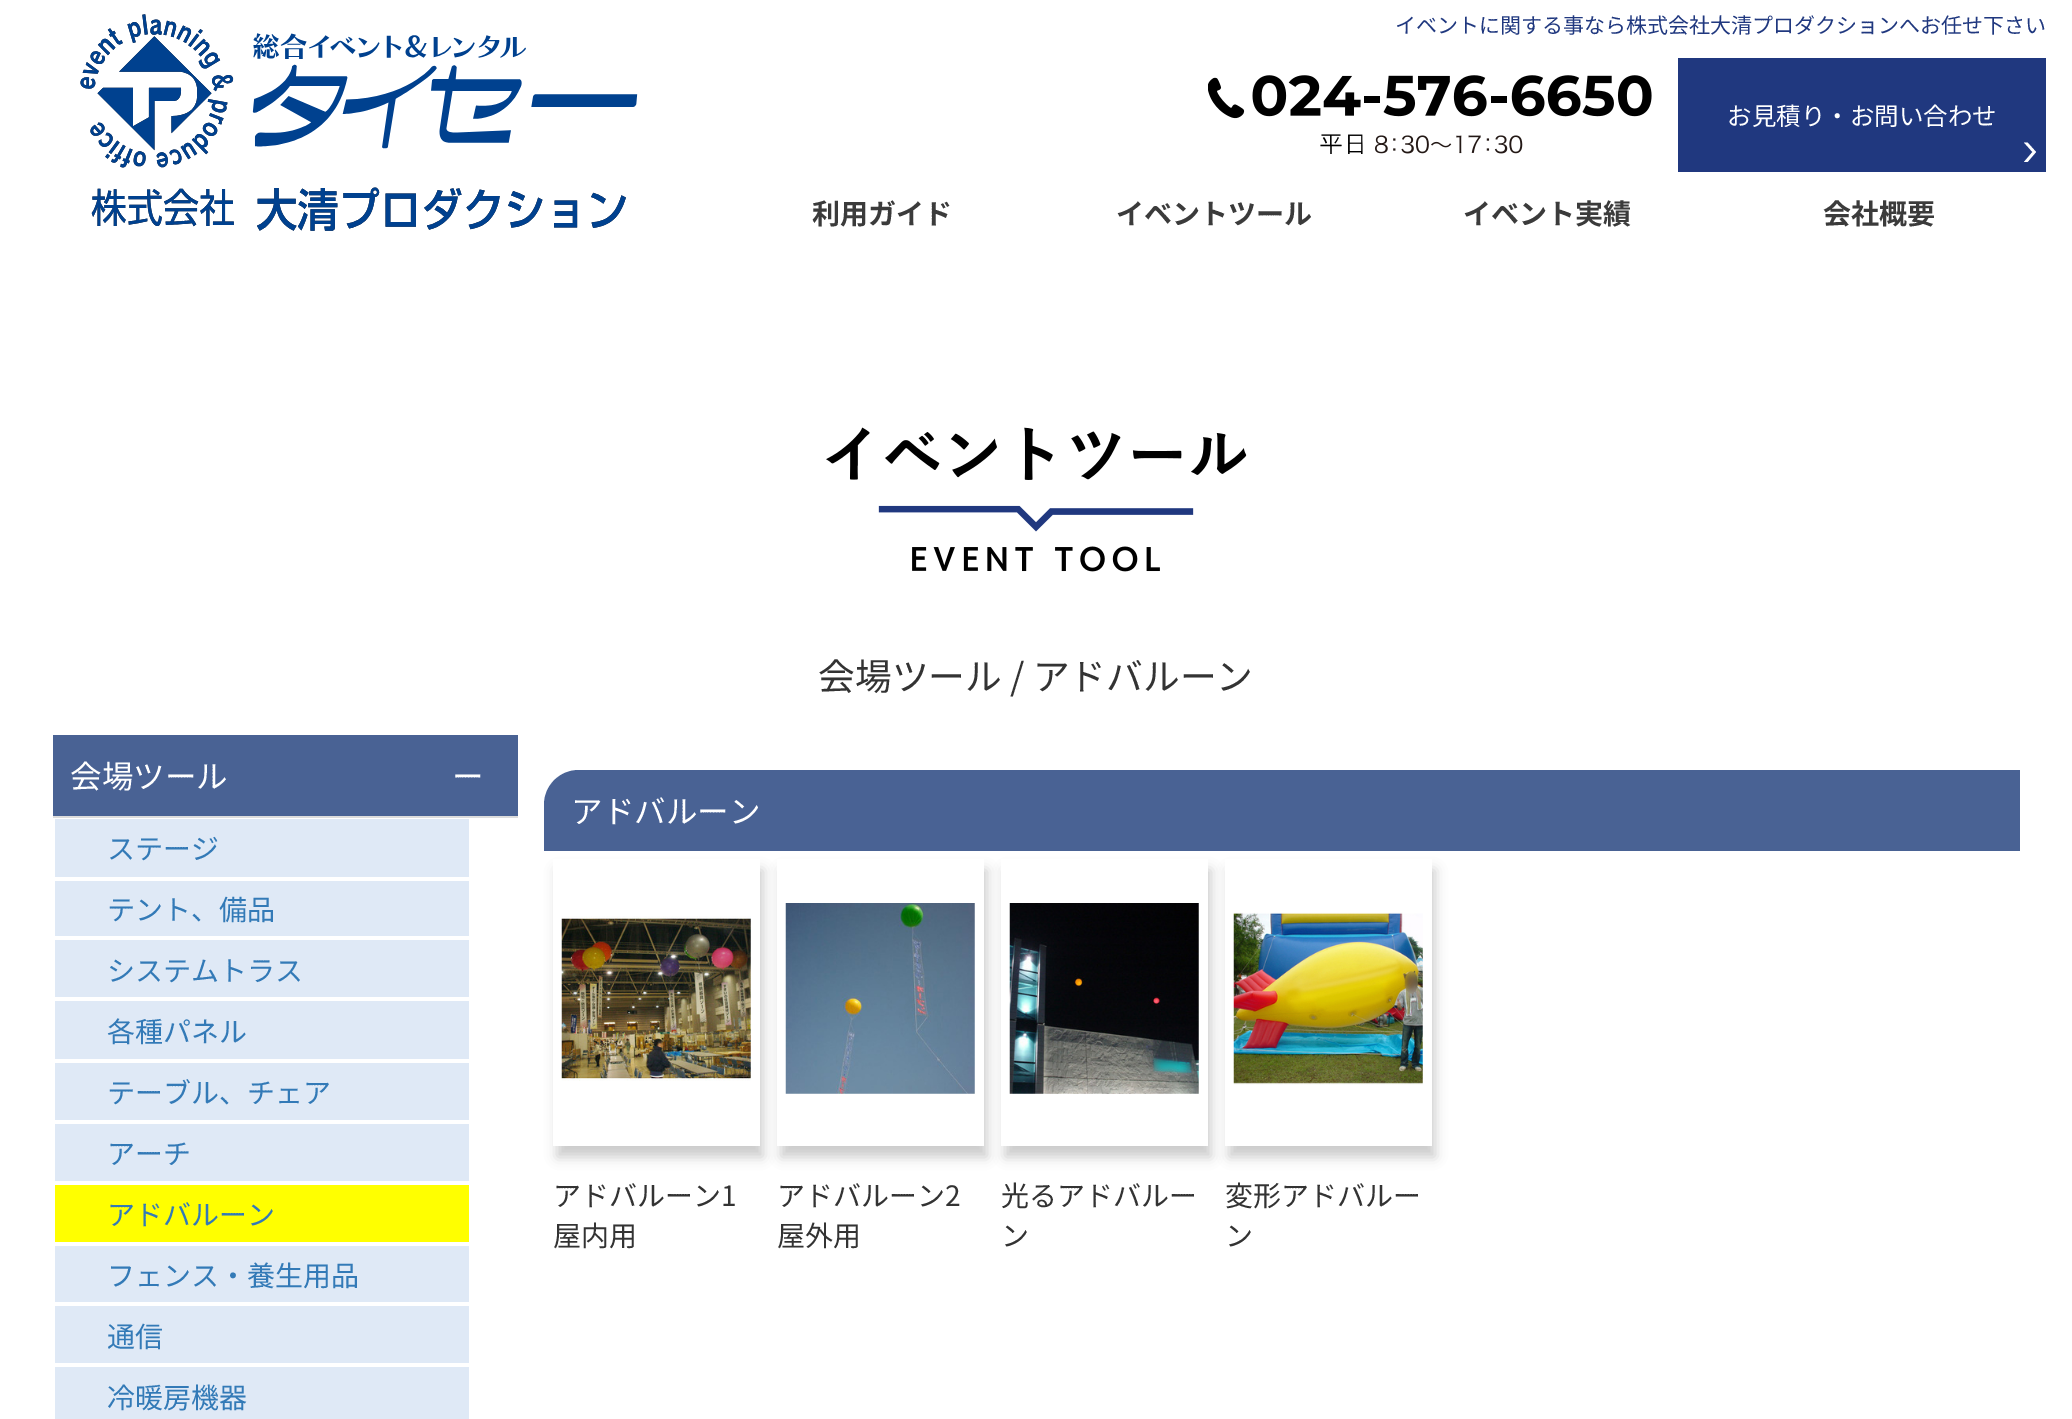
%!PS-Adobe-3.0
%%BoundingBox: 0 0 2072 1419
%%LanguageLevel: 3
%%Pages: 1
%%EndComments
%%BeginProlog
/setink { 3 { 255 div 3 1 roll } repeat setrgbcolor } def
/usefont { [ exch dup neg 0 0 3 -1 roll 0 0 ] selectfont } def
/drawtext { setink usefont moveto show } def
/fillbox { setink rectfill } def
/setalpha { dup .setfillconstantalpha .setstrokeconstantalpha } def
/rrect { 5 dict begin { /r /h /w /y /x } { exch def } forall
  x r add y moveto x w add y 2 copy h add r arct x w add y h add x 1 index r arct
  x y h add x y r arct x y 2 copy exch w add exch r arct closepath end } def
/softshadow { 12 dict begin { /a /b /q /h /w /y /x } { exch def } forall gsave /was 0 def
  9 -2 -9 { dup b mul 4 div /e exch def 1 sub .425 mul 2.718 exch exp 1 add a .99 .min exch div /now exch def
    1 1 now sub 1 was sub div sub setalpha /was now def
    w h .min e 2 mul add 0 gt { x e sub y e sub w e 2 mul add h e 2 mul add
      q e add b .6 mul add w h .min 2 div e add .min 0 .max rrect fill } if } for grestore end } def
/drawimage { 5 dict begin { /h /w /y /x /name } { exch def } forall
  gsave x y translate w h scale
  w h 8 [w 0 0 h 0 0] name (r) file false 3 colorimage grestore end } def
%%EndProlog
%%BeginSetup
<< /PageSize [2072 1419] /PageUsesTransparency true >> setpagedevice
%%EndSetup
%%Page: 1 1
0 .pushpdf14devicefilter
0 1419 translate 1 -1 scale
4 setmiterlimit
0 0 2072 1419 255 255 255 fillbox
(assets/img1.rgb) 80 14 558 217 drawimage
(イベントに関する事なら株式会社大清プロダクションへお任せ下さい) 1395 33 /NotoSansJP-Regular 21 32 56 127 drawtext
(assets/img2.rgb) 1208 75 444 79 drawimage
1678 58 368 114 32 56 127 fillbox
(お見積り・お問い合わせ) 1727 125 /NotoSansJP-Regular 24.5 255 255 255 drawtext
2036 152 moveto 2027.5 142.5 lineto 2024 142.5 lineto 2032.5 152 lineto 2024 162 lineto 2027.5 162 lineto closepath fill
(利用ガイド) 812 224 /NotoSansJP-Bold 28 59 59 59 drawtext
(イベントツール) 1116 224 /NotoSansJP-Bold 28 59 59 59 drawtext
(イベント実績) 1463 224 /NotoSansJP-Bold 28 59 59 59 drawtext
(会社概要) 1823 224 /NotoSansJP-Bold 28 59 59 59 drawtext
(assets/img3.rgb) 826 427 421 145 drawimage
(会場ツール / アドバルーン) 818 690 /NotoSansJP-Regular 36.75 51 51 51 drawtext
53 735 465 81 73 98 148 fillbox
53 816 465 2 220 220 220 fillbox
(会場ツール) 70 788 /NotoSansJP-Regular 31.5 255 255 255 drawtext
(ー) 452 788 /NotoSansJP-Regular 31.5 255 255 255 drawtext
55 819 414 58 223 233 246 fillbox
(ステージ) 107 859 /NotoSansJP-Regular 28 51 122 183 drawtext
55 881 414 55 223 233 246 fillbox
(テント、備品) 107 920 /NotoSansJP-Regular 28 51 122 183 drawtext
55 940 414 57 223 233 246 fillbox
(システムトラス) 107 981 /NotoSansJP-Regular 28 51 122 183 drawtext
55 1001 414 58 223 233 246 fillbox
(各種パネル) 107 1042 /NotoSansJP-Regular 28 51 122 183 drawtext
55 1063 414 57 223 233 246 fillbox
(テーブル、チェア) 107 1103 /NotoSansJP-Regular 28 51 122 183 drawtext
55 1124 414 57 223 233 246 fillbox
(アーチ) 107 1164 /NotoSansJP-Regular 28 51 122 183 drawtext
55 1185 414 57 255 255 0 fillbox
(アドバルーン) 107 1225 /NotoSansJP-Regular 28 51 122 183 drawtext
55 1246 414 56 223 233 246 fillbox
(フェンス・養生用品) 107 1286 /NotoSansJP-Regular 28 51 122 183 drawtext
55 1306 414 57 223 233 246 fillbox
(通信) 107 1347 /NotoSansJP-Regular 28 51 122 183 drawtext
55 1367 414 52 223 233 246 fillbox
(冷暖房機器) 107 1408 /NotoSansJP-Regular 28 51 122 183 drawtext
73 98 148 setink
579 770 moveto 2020 770 lineto 2020 851 lineto 544 851 lineto 544 805 lineto 544 785.5 559.5 770 579 770 curveto closepath fill
(アドバルーン) 571 823 /NotoSansJP-Regular 31.5 255 255 255 drawtext
gsave
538 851 moveto 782 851 lineto 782 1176 lineto 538 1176 lineto closepath 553 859 moveto 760 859 lineto 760 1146 lineto 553 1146 lineto closepath eoclip newpath
0 0 0 setink
557 870 206 287 0 6 0.2 softshadow
grestore
(assets/img4.rgb) 561 916 190 165 drawimage
(アドバルーン1) 553 1206 /NotoSansJP-Regular 28 51 51 51 drawtext
(屋内用) 553 1246 /NotoSansJP-Regular 28 51 51 51 drawtext
gsave
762 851 moveto 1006 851 lineto 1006 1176 lineto 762 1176 lineto closepath 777 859 moveto 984 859 lineto 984 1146 lineto 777 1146 lineto closepath eoclip newpath
0 0 0 setink
781 870 206 287 0 6 0.2 softshadow
grestore
(assets/img5.rgb) 785 903 190 191 drawimage
(アドバルーン2) 777 1206 /NotoSansJP-Regular 28 51 51 51 drawtext
(屋外用) 777 1246 /NotoSansJP-Regular 28 51 51 51 drawtext
gsave
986 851 moveto 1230 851 lineto 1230 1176 lineto 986 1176 lineto closepath 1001 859 moveto 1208 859 lineto 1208 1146 lineto 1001 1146 lineto closepath eoclip newpath
0 0 0 setink
1005 870 206 287 0 6 0.2 softshadow
grestore
(assets/img6.rgb) 1009 903 190 191 drawimage
(光るアドバルー) 1001 1206 /NotoSansJP-Regular 28 51 51 51 drawtext
(ン) 1001 1246 /NotoSansJP-Regular 28 51 51 51 drawtext
gsave
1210 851 moveto 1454 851 lineto 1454 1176 lineto 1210 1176 lineto closepath 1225 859 moveto 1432 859 lineto 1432 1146 lineto 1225 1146 lineto closepath eoclip newpath
0 0 0 setink
1229 870 206 287 0 6 0.2 softshadow
grestore
(assets/img7.rgb) 1233 912 190 173 drawimage
(変形アドバルー) 1225 1206 /NotoSansJP-Regular 28 51 51 51 drawtext
(ン) 1225 1246 /NotoSansJP-Regular 28 51 51 51 drawtext
.poppdf14devicefilter showpage
%%EOF
